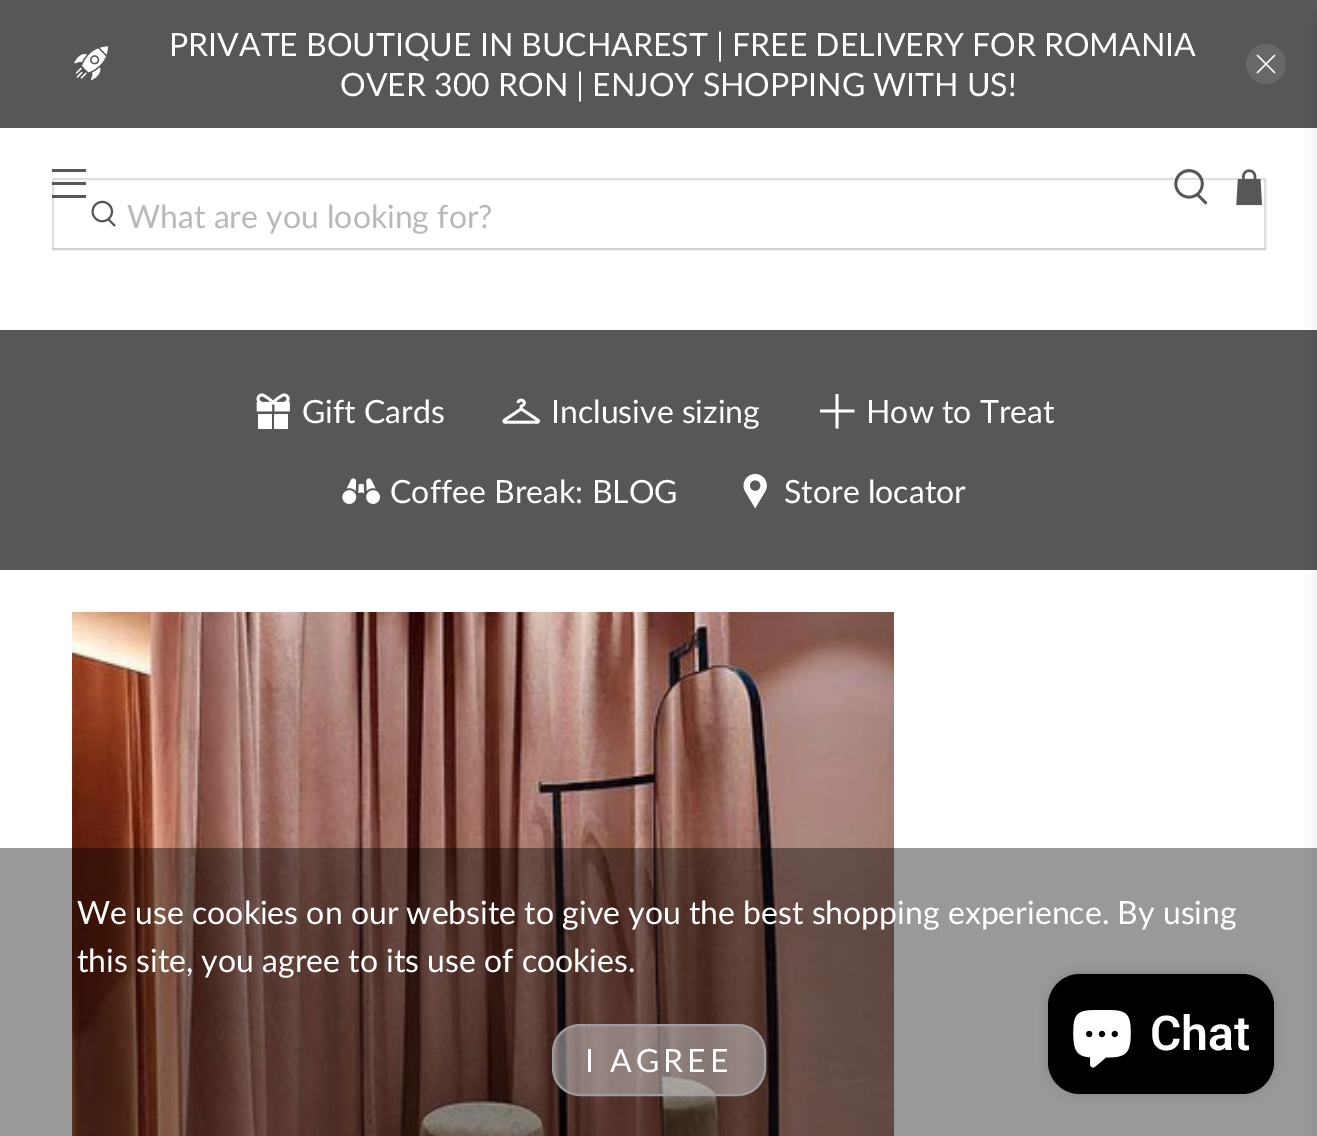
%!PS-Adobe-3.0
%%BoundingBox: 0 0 1317 1136
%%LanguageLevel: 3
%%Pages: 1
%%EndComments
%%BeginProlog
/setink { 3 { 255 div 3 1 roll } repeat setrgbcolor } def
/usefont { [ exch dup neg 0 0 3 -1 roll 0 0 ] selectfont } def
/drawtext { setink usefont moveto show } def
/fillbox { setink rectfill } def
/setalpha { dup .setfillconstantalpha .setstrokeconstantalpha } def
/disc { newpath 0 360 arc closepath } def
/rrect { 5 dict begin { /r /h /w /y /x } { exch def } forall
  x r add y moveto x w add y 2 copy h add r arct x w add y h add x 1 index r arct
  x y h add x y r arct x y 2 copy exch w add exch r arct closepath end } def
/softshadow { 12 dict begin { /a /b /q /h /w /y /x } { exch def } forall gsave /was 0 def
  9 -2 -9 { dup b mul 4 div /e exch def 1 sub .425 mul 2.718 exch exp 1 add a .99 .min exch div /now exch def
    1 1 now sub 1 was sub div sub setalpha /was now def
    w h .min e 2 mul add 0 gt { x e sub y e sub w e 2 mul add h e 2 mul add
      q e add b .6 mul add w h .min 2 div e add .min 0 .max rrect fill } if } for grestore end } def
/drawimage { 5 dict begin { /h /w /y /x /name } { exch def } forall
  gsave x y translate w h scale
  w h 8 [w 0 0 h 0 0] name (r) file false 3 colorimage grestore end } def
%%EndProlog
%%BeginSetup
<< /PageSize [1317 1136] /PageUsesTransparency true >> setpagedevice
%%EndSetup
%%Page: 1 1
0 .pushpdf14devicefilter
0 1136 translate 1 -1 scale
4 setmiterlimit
0 0 1317 1136 255 255 255 fillbox
214 208 203 setink
2 setlinewidth
53 179 1212 70 rectstroke
(assets/img5.rgb) 91 200 25 27 drawimage
(What are you looking for?) 127 228 /Lato-Regular 32 155 155 155 drawtext
0.3 setalpha
52 178 1214 70 255 255 255 fillbox
1 setalpha
52 169 34 3 88 87 87 fillbox
52 182 34 3 88 87 87 fillbox
52 195 34 3 88 87 87 fillbox
(assets/img1.rgb) 1174 169 34 36 drawimage
(assets/img2.rgb) 1236 169 27 37 drawimage
0 0 1317 128 88 87 87 fillbox
0 330 1317 240 88 87 87 fillbox
10 10 10 setink
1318 16 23 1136 0 8 0.1 softshadow
(assets/img3.rgb) 74 46 35 34 drawimage
(PRIVATE BOUTIQUE IN BUCHAREST | FREE DELIVERY FOR ROMANIA) 169 56 /Lato-Regular 32 255 255 255 drawtext
(OVER 300 RON | ENJOY SHOPPING WITH US!) 340 96 /Lato-Regular 32 255 255 255 drawtext
105 104 104 setink
1266 64 20 disc fill
(assets/img4.rgb) 1256 54 20 20 drawimage
(assets/img6.rgb) 256 393 34 36 drawimage
(Gift Cards) 302 423 /Lato-Regular 32 255 255 255 drawtext
(assets/img7.rgb) 502 398 38 26 drawimage
(Inclusive sizing) 551 423 /Lato-Regular 32 255 255 255 drawtext
854.5 409.5 moveto 838.5 409.5 lineto 838.5 394 lineto 835.5 394 lineto 835.5 409.5 lineto 820 409.5 lineto 820 412.5 lineto 835.5 412.5 lineto 835.5 428.5 lineto 838.5 428.5 lineto 838.5 412.5 lineto 854.5 412.5 lineto closepath fill
(How to Treat) 866 423 /Lato-Regular 32 255 255 255 drawtext
(assets/img8.rgb) 342 478 38 26 drawimage
(Coffee Break: BLOG) 390 503 /Lato-Regular 32 255 255 255 drawtext
(assets/img9.rgb) 743 473 24 36 drawimage
(Store locator) 784 503 /Lato-Regular 32 255 255 255 drawtext
(assets/img10.rgb) 72 612 822 524 drawimage
0.4 setalpha
0 848 1317 288 0 0 0 fillbox
1 setalpha
(We use cookies on our website to give you the best shopping experience. By using) 77 924 /Lato-Regular 32 255 255 255 drawtext
(this site, you agree to its use of cookies.) 77 972 /Lato-Regular 32 255 255 255 drawtext
0.5 setalpha
204 204 204 setink
553 1025 212 70 27 rrect fill
1 setalpha
157 157 157 setink
553 1025 212 70 27 rrect stroke
255 255 255 setink
585 1072 moveto 4 0 (I AGREE) ashow
0 0 0 setink
1048 974 226 120 32 5 0.15 softshadow
1048 974 226 120 32 rrect fill
(assets/img11.rgb) 1073 1010 58 58 drawimage
(Chat) 1150 1050 /Roboto-SemiBold 48 255 255 255 drawtext
.poppdf14devicefilter showpage
%%EOF
